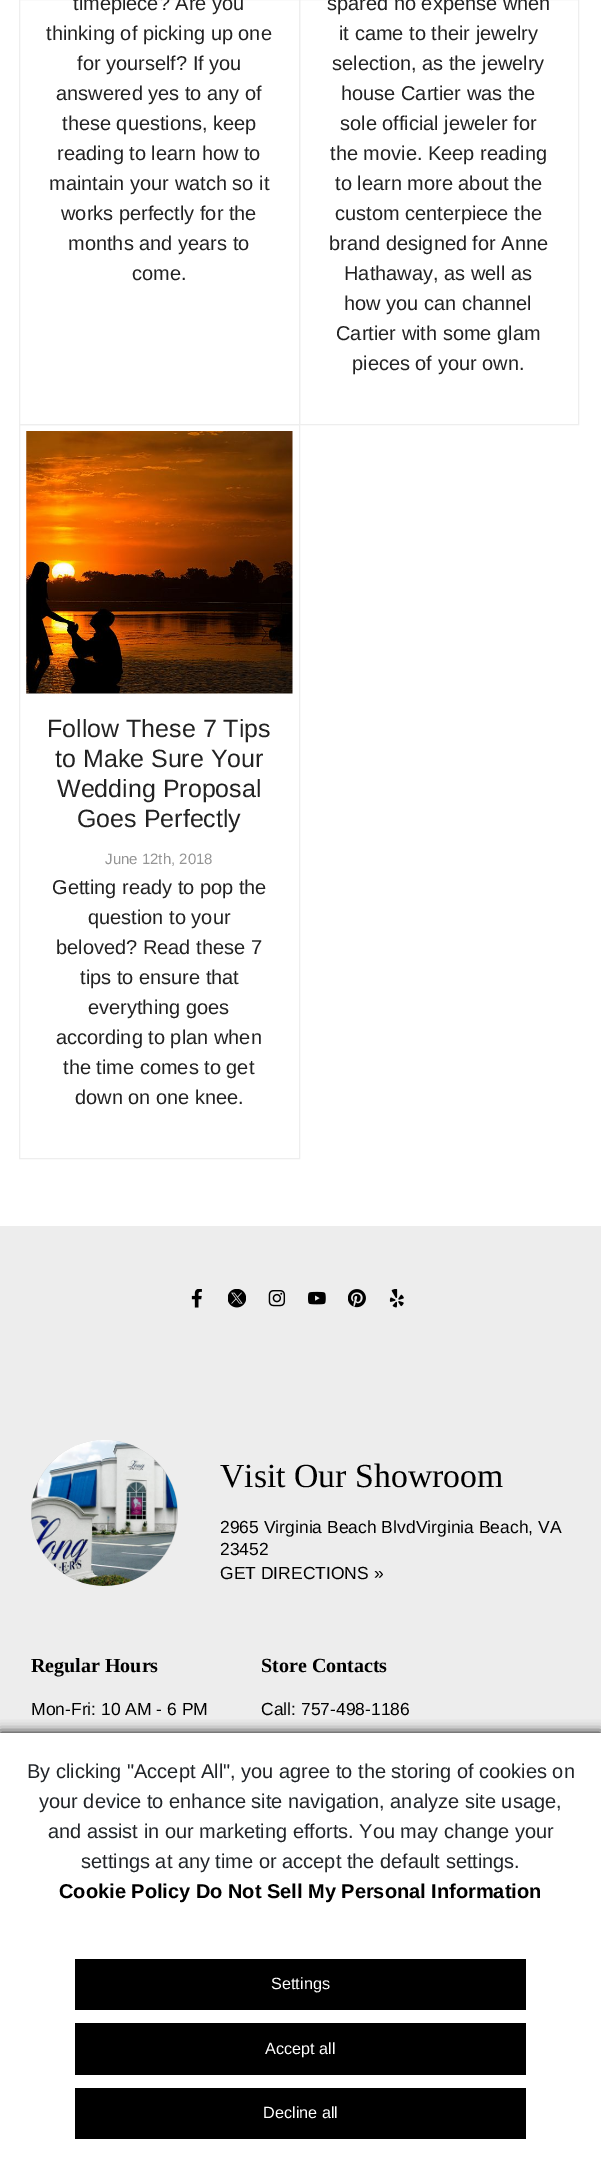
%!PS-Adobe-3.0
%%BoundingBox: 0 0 601 2170
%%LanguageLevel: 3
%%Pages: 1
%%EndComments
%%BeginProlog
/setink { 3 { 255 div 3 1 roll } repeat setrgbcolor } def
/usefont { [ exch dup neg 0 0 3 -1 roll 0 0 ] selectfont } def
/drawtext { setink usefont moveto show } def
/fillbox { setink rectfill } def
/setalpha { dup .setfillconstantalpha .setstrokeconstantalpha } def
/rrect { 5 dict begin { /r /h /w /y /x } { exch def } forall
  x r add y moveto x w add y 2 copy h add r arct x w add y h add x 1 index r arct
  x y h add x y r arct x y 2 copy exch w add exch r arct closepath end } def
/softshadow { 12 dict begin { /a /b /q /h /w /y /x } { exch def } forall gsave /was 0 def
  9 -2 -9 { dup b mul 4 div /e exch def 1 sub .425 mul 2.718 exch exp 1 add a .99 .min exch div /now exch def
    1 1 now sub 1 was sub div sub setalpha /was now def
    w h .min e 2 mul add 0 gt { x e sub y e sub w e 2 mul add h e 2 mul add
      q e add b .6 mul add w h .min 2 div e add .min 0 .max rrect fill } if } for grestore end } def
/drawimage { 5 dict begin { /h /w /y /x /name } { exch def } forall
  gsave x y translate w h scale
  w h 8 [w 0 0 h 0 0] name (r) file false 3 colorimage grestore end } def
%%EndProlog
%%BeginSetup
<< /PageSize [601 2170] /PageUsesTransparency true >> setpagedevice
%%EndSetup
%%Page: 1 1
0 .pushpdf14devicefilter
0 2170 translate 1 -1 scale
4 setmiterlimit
0 0 601 2170 255 255 255 fillbox
238 238 238 setink
19.5 -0.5 280 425 rectstroke
(timepiece? Are you) 73 10 /LiberationSans-Regular 20 34 34 34 drawtext
(thinking of picking up one) 46 40 /LiberationSans-Regular 20 34 34 34 drawtext
(for yourself? If you) 77 70 /LiberationSans-Regular 20 34 34 34 drawtext
(answered yes to any of) 56 100 /LiberationSans-Regular 20 34 34 34 drawtext
(these questions, keep) 62 130 /LiberationSans-Regular 20 34 34 34 drawtext
(reading to learn how to) 57 160 /LiberationSans-Regular 20 34 34 34 drawtext
(maintain your watch so it) 49 190 /LiberationSans-Regular 20 34 34 34 drawtext
(works perfectly for the) 61 220 /LiberationSans-Regular 20 34 34 34 drawtext
(months and years to) 68 250 /LiberationSans-Regular 20 34 34 34 drawtext
(come.) 132 280 /LiberationSans-Regular 20 34 34 34 drawtext
238 238 238 setink
299.5 -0.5 279 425 rectstroke
(spared no expense when) 327 10 /LiberationSans-Regular 20 34 34 34 drawtext
(it came to their jewelry) 339 40 /LiberationSans-Regular 20 34 34 34 drawtext
(selection, as the jewelry) 332 70 /LiberationSans-Regular 20 34 34 34 drawtext
(house Cartier was the) 341 100 /LiberationSans-Regular 20 34 34 34 drawtext
(sole official jeweler for) 340 130 /LiberationSans-Regular 20 34 34 34 drawtext
(the movie. Keep reading) 330 160 /LiberationSans-Regular 20 34 34 34 drawtext
(to learn more about the) 335 190 /LiberationSans-Regular 20 34 34 34 drawtext
(custom centerpiece the) 335 220 /LiberationSans-Regular 20 34 34 34 drawtext
(brand designed for Anne) 329 250 /LiberationSans-Regular 20 34 34 34 drawtext
(Hathaway, as well as) 344 280 /LiberationSans-Regular 20 34 34 34 drawtext
(how you can channel) 344 310 /LiberationSans-Regular 20 34 34 34 drawtext
(Cartier with some glam) 336 340 /LiberationSans-Regular 20 34 34 34 drawtext
(pieces of your own.) 352 370 /LiberationSans-Regular 20 34 34 34 drawtext
238 238 238 setink
19.5 424.5 280 734 rectstroke
(assets/img1.rgb) 26 431 267 263 drawimage
(Follow These 7 Tips) 47 737 /LiberationSans-Regular 25 34 34 34 drawtext
(to Make Sure Your) 55 767 /LiberationSans-Regular 25 34 34 34 drawtext
(Wedding Proposal) 57 797 /LiberationSans-Regular 25 34 34 34 drawtext
(Goes Perfectly) 77 827 /LiberationSans-Regular 25 34 34 34 drawtext
(June 12th, 2018) 105 864 /LiberationSans-Regular 15 149 149 149 drawtext
(Getting ready to pop the) 52 894 /LiberationSans-Regular 20 34 34 34 drawtext
(question to your) 88 924 /LiberationSans-Regular 20 34 34 34 drawtext
(beloved? Read these 7) 56 954 /LiberationSans-Regular 20 34 34 34 drawtext
(tips to ensure that) 80 984 /LiberationSans-Regular 20 34 34 34 drawtext
(everything goes) 88 1014 /LiberationSans-Regular 20 34 34 34 drawtext
(according to plan when) 56 1044 /LiberationSans-Regular 20 34 34 34 drawtext
(the time comes to get) 63 1074 /LiberationSans-Regular 20 34 34 34 drawtext
(down on one knee.) 75 1104 /LiberationSans-Regular 20 34 34 34 drawtext
0 1226 601 507 237 237 237 fillbox
(assets/img2.rgb) 191 1289 11 19 drawimage
(assets/img3.rgb) 228 1289 18 19 drawimage
(assets/img4.rgb) 268 1290 18 17 drawimage
(assets/img5.rgb) 308 1291 18 14 drawimage
(assets/img6.rgb) 348 1289 18 19 drawimage
(assets/img7.rgb) 389 1289 15 19 drawimage
204 204 204 setink
31 1440 147 146 73 rrect fill
(assets/img8.rgb) 31 1440 147 146 drawimage
(Visit Our Showroom) 220 1487 /LiberationSerif-Regular 33.75 0 0 0 drawtext
(2965 Virginia Beach BlvdVirginia Beach, VA) 220 1533 /LiberationSans-Regular 17.5 0 0 0 drawtext
(23452) 220 1555 /LiberationSans-Regular 17.5 0 0 0 drawtext
(GET DIRECTIONS ») 220 1579 /LiberationSans-Regular 17.5 0 0 0 drawtext
(Regular Hours) 31 1672 /LiberationSerif-Bold 20 0 0 0 drawtext
(Mon-Fri: 10 AM - 6 PM) 31 1715 /LiberationSans-Regular 17.5 0 0 0 drawtext
(Store Contacts) 261 1672 /LiberationSerif-Bold 20 0 0 0 drawtext
(Call: 757-498-1186) 261 1715 /LiberationSans-Regular 17.5 0 0 0 drawtext
0 1733 601 437 0 6 1 softshadow
0 1733 601 437 255 255 255 fillbox
(By clicking "Accept All", you agree to the storing of cookies on) 27 1778 /LiberationSans-Regular 20 33 37 41 drawtext
(your device to enhance site navigation, analyze site usage,) 39 1808 /LiberationSans-Regular 20 33 37 41 drawtext
(and assist in our marketing efforts. You may change your) 48 1838 /LiberationSans-Regular 20 33 37 41 drawtext
(settings at any time or accept the default settings.) 81 1868 /LiberationSans-Regular 20 33 37 41 drawtext
(Cookie Policy Do Not Sell My Personal Information) 59 1898 /LiberationSans-Bold 20 0 0 0 drawtext
75 1959 451 51 0 0 0 fillbox
(Settings) 271 1989 /LiberationSans-Regular 16.25 255 255 255 drawtext
75 2023 451 52 0 0 0 fillbox
(Accept all) 265 2054 /LiberationSans-Regular 16.25 255 255 255 drawtext
75 2088 451 51 0 0 0 fillbox
(Decline all) 263 2118 /LiberationSans-Regular 16.25 255 255 255 drawtext
.poppdf14devicefilter showpage
%%EOF
